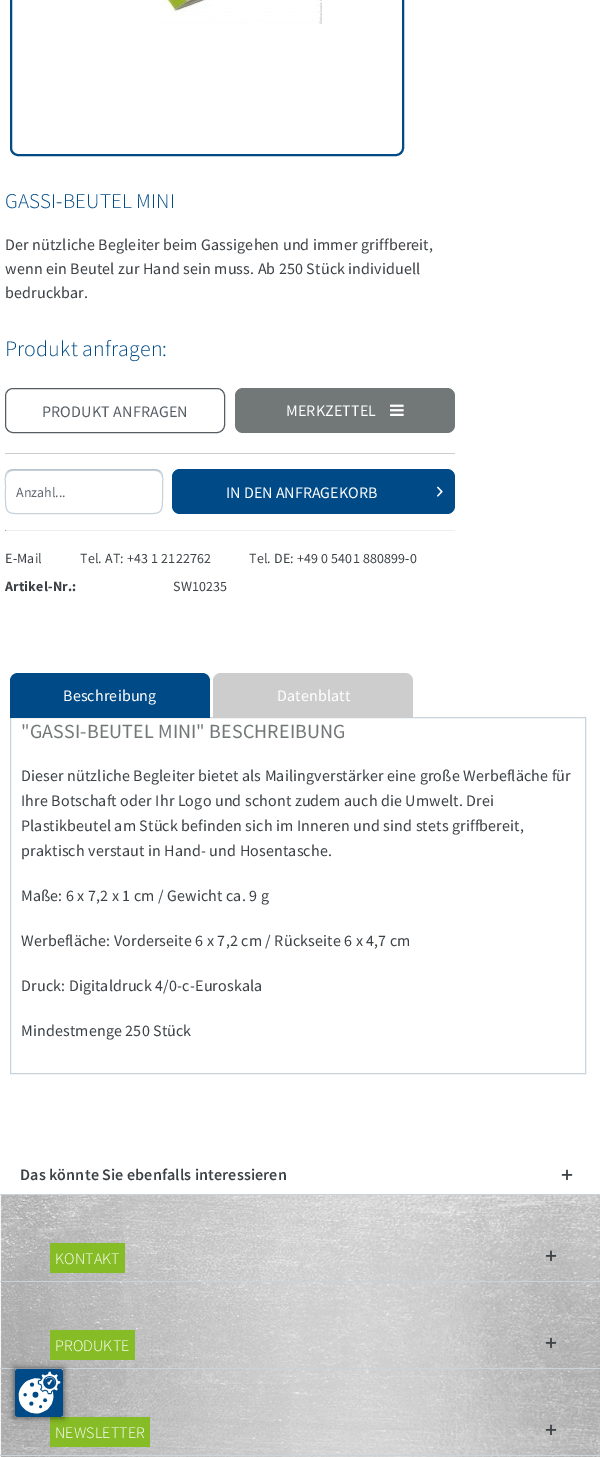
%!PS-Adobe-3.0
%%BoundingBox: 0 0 600 1457
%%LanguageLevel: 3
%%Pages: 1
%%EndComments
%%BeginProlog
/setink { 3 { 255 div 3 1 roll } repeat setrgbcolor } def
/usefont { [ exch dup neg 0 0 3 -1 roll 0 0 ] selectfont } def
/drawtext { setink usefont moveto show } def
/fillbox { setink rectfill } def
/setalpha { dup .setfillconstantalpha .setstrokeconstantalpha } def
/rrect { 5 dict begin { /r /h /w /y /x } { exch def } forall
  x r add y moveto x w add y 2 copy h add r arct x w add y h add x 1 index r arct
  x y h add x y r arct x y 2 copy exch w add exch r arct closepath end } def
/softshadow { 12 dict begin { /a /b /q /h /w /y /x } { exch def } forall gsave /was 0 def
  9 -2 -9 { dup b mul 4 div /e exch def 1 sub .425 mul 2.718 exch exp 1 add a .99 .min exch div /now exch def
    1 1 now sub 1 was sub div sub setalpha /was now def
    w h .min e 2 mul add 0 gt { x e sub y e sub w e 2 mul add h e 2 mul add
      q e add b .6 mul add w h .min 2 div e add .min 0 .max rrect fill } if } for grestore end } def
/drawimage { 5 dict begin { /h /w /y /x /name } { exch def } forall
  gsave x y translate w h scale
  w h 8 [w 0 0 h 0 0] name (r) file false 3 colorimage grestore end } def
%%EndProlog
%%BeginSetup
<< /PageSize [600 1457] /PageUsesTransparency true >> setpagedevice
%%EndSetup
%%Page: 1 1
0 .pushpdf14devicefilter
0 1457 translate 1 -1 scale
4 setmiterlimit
0 0 600 1457 255 255 255 fillbox
0 75 135 setink
2 setlinewidth
11 -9 392 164 7 rrect stroke
(assets/img1.rgb) 158 0 164 25 drawimage
/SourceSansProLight-Light 21 usefont
5 208 moveto 0.15 0 (GASSI-BEUTEL MINI) ashow
/SourceSansPro-Regular 16 usefont
60 65 69 setink
5 250 moveto 0.15 0 (Der nützliche Begleiter beim Gassigehen und immer griffbereit,) ashow
5 274 moveto 0.15 0 (wenn ein Beutel zur Hand sein muss. Ab 250 Stück individuell) ashow
5 298 moveto 0.15 0 (bedruckbar.) ashow
/SourceSansProLight-Light 22 usefont
0 75 135 setink
5 356 moveto 0.15 0 (Produkt anfragen:) ashow
5 453 450 1 204 204 204 fillbox
86 93 99 setink
1 setlinewidth
5.5 388.5 219 44 7.5 rrect stroke
/SourceSansPro-Regular 16 usefont
42 417 moveto 0.15 0 (PRODUKT ANFRAGEN) ashow
114 119 119 setink
235 388 220 45 8 rrect fill
255 255 255 setink
286 416 moveto 0.15 0 (MERKZETTEL) ashow
(assets/img2.rgb) 390 404 14 12 drawimage
200 211 219 setink
13 471 moveto 155 471 lineto 159 471 162 474 162 478 curveto 162 477 lineto 162 473 159 470 155 470 curveto 13 470 lineto 9 470 6 473 6 477 curveto 6 478 lineto 6 474 9 471 13 471 curveto closepath fill
185 198 208 setink
7.5 471.5 moveto 9 470.5 11 469.5 13 469.5 curveto 155 469.5 lineto 157 469.5 159 470.5 160.5 471.5 curveto stroke
200 211 219 setink
160.5 471.5 moveto 164 475.5 162.5 482 162.5 486.5 curveto 162.5 518 165.5 513.5 131.5 513.5 curveto 36.5 513.5 lineto 2.5 513.5 5.5 518 5.5 486.5 curveto 5.5 482 4 475.5 7.5 471.5 curveto stroke
(Anzahl...) 16 497 /SourceSansPro-Regular 14 96 104 110 drawtext
0 75 135 setink
172 469 283 45 8 rrect fill
(IN DEN ANFRAGEKORB) 226 498 /SourceSansPro-Regular 16 255 255 255 drawtext
(assets/img3.rgb) 437 486 6 11 drawimage
5 530 450 1 238 238 238 fillbox
5 530 1 1 159 159 159 fillbox
/SourceSansPro-Regular 14 usefont
60 65 69 setink
5 563 moveto 0.15 0 (E-Mail) ashow
80 563 moveto 0.15 0 (Tel. AT: +43 1 2122762) ashow
249 563 moveto 0.15 0 (Tel. DE: +49 0 5401 880899-0) ashow
/SourceSansPro-Bold 14 usefont
5 591 moveto 0.15 0 (Artikel-Nr.:) ashow
/SourceSansPro-Regular 14 usefont
173 591 moveto 0.15 0 (SW10235) ashow
200 211 219 setink
10.5 717.5 575 356 rectstroke
0 75 135 setink
18 673 moveto 202 673 lineto 206.5 673 210 676.5 210 681 curveto 210 718 lineto 10 718 lineto 10 681 lineto 10 676.5 13.5 673 18 673 curveto closepath fill
/SourceSansPro-Regular 16 usefont
255 255 255 setink
63 701 moveto 0.15 0 (Beschreibung) ashow
205 205 205 setink
221 673 moveto 405 673 lineto 409.5 673 413 676.5 413 681 curveto 413 718 lineto 213 718 lineto 213 681 lineto 213 676.5 216.5 673 221 673 curveto closepath fill
255 255 255 setink
277 701 moveto 0.15 0 (Datenblatt) ashow
/SourceSansPro-Regular 20 usefont
114 119 119 setink
21 738 moveto 0.15 0 ("GASSI-BEUTEL MINI" BESCHREIBUNG) ashow
/SourceSansPro-Regular 16 usefont
60 65 69 setink
21 781 moveto 0.15 0 (Dieser nützliche Begleiter bietet als Mailingverstärker eine große Werbefläche für) ashow
21 806 moveto 0.15 0 (Ihre Botschaft oder Ihr Logo und schont zudem auch die Umwelt. Drei) ashow
21 831 moveto 0.15 0 (Plastikbeutel am Stück befinden sich im Inneren und sind stets griffbereit,) ashow
21 856 moveto 0.15 0 (praktisch verstaut in Hand- und Hosentasche.) ashow
21 901 moveto 0.15 0 (Maße: 6 x 7,2 x 1 cm / Gewicht ca. 9 g) ashow
21 946 moveto 0.15 0 (Werbefläche: Vorderseite 6 x 7,2 cm / Rückseite 6 x 4,7 cm) ashow
21 991 moveto 0.15 0 (Druck: Digitaldruck 4/0-c-Euroskala) ashow
21 1036 moveto 0.15 0 (Mindestmenge 250 Stück) ashow
/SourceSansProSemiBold-SemiBold 16 usefont
20 1180 moveto 0.15 0 (Das könnte Sie ebenfalls interessieren) ashow
(assets/img4.rgb) 561 1169 12 12 drawimage
(assets/img5.rgb) 0 1195 600 262 drawimage
0 1194 600 1 200 211 219 fillbox
50 1243 75 30 134 188 37 fillbox
/SourceSansProLight-Light 16 usefont
255 255 255 setink
55 1264 moveto 0.15 0 (KONTAKT) ashow
(assets/img6.rgb) 545 1250 12 12 drawimage
0 1281 600 1 200 211 219 fillbox
50 1330 85 30 134 188 37 fillbox
255 255 255 setink
55 1351 moveto 0.15 0 (PRODUKTE) ashow
(assets/img7.rgb) 545 1337 12 12 drawimage
0 1368 600 1 200 211 219 fillbox
50 1417 100 30 134 188 37 fillbox
255 255 255 setink
55 1438 moveto 0.15 0 (NEWSLETTER) ashow
(assets/img8.rgb) 545 1424 12 12 drawimage
0 1455 600 1 200 211 219 fillbox
0 0 0 setink
14 1368 50 50 0 3 0.5 softshadow
(assets/img9.rgb) 15 1369 48 48 drawimage
.poppdf14devicefilter showpage
%%EOF
